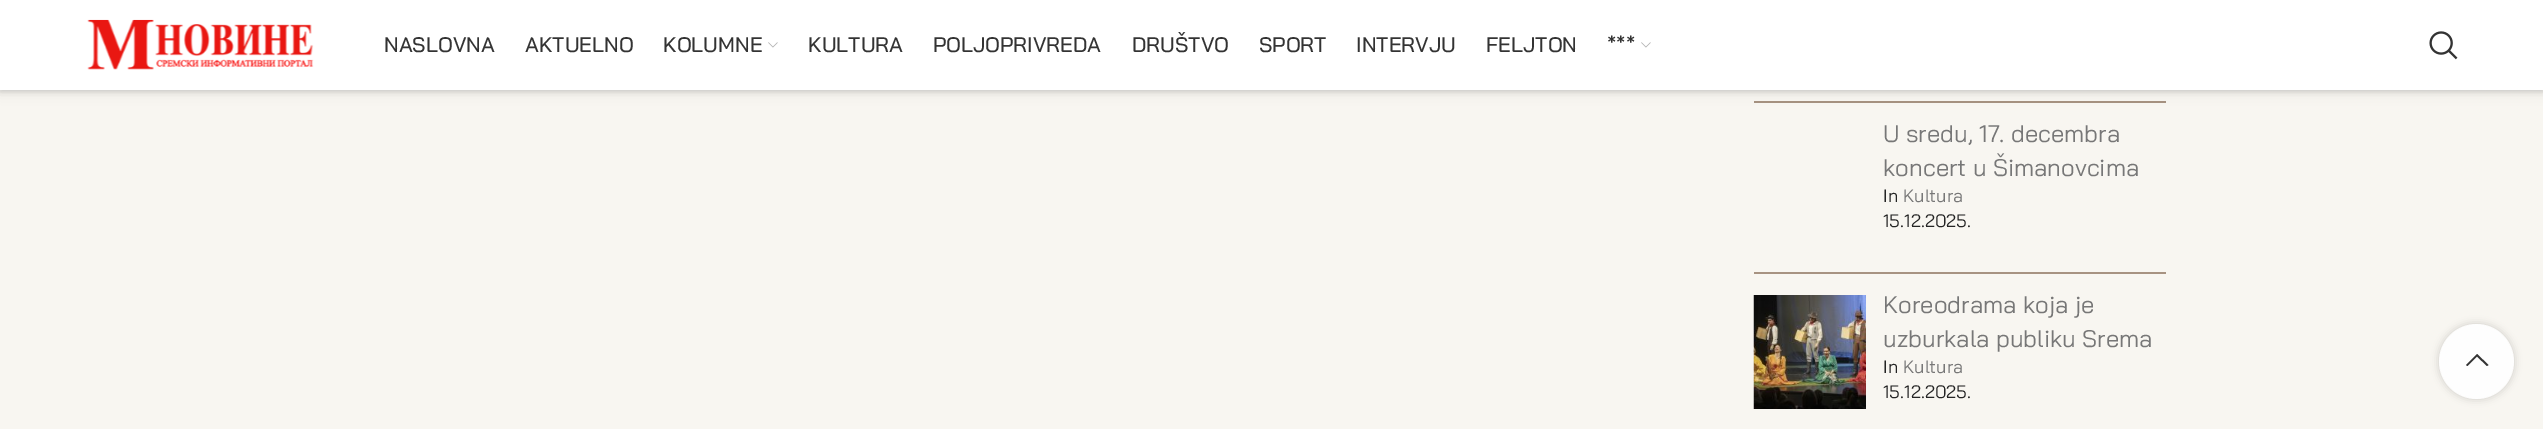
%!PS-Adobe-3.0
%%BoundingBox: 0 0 2543 429
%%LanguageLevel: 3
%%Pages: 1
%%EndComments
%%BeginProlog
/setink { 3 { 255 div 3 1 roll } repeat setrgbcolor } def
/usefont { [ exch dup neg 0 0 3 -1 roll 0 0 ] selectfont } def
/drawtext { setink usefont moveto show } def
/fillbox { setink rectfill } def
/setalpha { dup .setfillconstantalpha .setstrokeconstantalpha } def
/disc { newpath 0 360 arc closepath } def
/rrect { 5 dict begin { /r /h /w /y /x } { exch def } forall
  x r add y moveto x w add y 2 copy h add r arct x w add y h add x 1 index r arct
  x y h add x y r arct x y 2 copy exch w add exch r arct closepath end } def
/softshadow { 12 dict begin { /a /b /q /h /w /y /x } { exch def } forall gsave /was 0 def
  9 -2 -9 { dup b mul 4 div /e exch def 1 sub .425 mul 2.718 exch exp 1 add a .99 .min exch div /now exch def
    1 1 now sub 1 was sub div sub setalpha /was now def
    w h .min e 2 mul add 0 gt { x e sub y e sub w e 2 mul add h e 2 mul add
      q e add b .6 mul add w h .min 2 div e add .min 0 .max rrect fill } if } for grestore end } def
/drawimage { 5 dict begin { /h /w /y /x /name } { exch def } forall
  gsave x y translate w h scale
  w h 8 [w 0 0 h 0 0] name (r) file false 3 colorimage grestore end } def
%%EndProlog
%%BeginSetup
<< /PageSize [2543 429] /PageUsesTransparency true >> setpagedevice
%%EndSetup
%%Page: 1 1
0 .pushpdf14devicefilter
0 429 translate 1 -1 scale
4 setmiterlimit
0 0 2543 429 248 246 241 fillbox
0 0 0 setink
0 2 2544 90 0 2 0.1 softshadow
1754 101 412 2 167 147 130 fillbox
0 0 0 setink
0 2 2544 90 0 6 0.1 softshadow
0 0 2543 90 255 255 255 fillbox
(assets/img1.rgb) 87 19 227 51 drawimage
(NASLOVNA) 384 52 /BaiJamjuree-Medium 21 51 51 51 drawtext
(AKTUELNO) 525 52 /BaiJamjuree-Medium 21 51 51 51 drawtext
(KOLUMNE) 663 52 /BaiJamjuree-Medium 21 51 51 51 drawtext
(assets/img2.rgb) 768 42 10 6 drawimage
(KULTURA) 808 52 /BaiJamjuree-Medium 21 51 51 51 drawtext
(POLJOPRIVREDA) 933 52 /BaiJamjuree-Medium 21 51 51 51 drawtext
(DRUŠTVO) 1132 52 /BaiJamjuree-Medium 21 51 51 51 drawtext
(SPORT) 1259 52 /BaiJamjuree-Medium 21 51 51 51 drawtext
(INTERVJU) 1356 52 /BaiJamjuree-Medium 21 51 51 51 drawtext
(FELJTON) 1486 52 /BaiJamjuree-Medium 21 51 51 51 drawtext
(***) 1607 52 /BaiJamjuree-Medium 21 51 51 51 drawtext
(assets/img2.rgb) 1641 42 10 6 drawimage
(assets/img3.rgb) 2429 31 29 29 drawimage
1754 272 412 2 167 147 130 fillbox
(U sredu, 17. decembra) 1883 142 /BaiJamjuree-Regular 24 119 119 119 drawtext
(koncert u Šimanovcima) 1883 176 /BaiJamjuree-Regular 24 119 119 119 drawtext
(In) 1883 202 /BaiJamjuree-Regular 18 36 36 36 drawtext
(Kultura) 1903 202 /BaiJamjuree-Regular 18 119 119 119 drawtext
(15.12.2025.) 1883 227 /BaiJamjuree-Regular 18 36 36 36 drawtext
(assets/img4.rgb) 1753 295 113 114 drawimage
(Koreodrama koja je) 1883 313 /BaiJamjuree-Regular 24 119 119 119 drawtext
(uzburkala publiku Srema) 1883 347 /BaiJamjuree-Regular 24 119 119 119 drawtext
(In) 1883 373 /BaiJamjuree-Regular 18 36 36 36 drawtext
(Kultura) 1903 373 /BaiJamjuree-Regular 18 119 119 119 drawtext
(15.12.2025.) 1883 398 /BaiJamjuree-Regular 18 36 36 36 drawtext
gsave
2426 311 moveto 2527 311 lineto 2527 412 lineto 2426 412 lineto closepath 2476.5 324 moveto 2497 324 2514 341 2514 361.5 curveto 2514 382 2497 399 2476.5 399 curveto 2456 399 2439 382 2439 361.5 curveto 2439 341 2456 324 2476.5 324 curveto closepath eoclip newpath
0 0 0 setink
2439 324 75 75 37.5 4 0.17 softshadow
grestore
0.9 setalpha
255 255 255 setink
2476.5 361.5 37.5 disc fill
1 setalpha
51 51 51 setink
2487 366 moveto 2488.5 365 lineto 2477 354 lineto 2466 365 lineto 2467.5 366 lineto 2477 356.5 lineto closepath fill
.poppdf14devicefilter showpage
%%EOF
